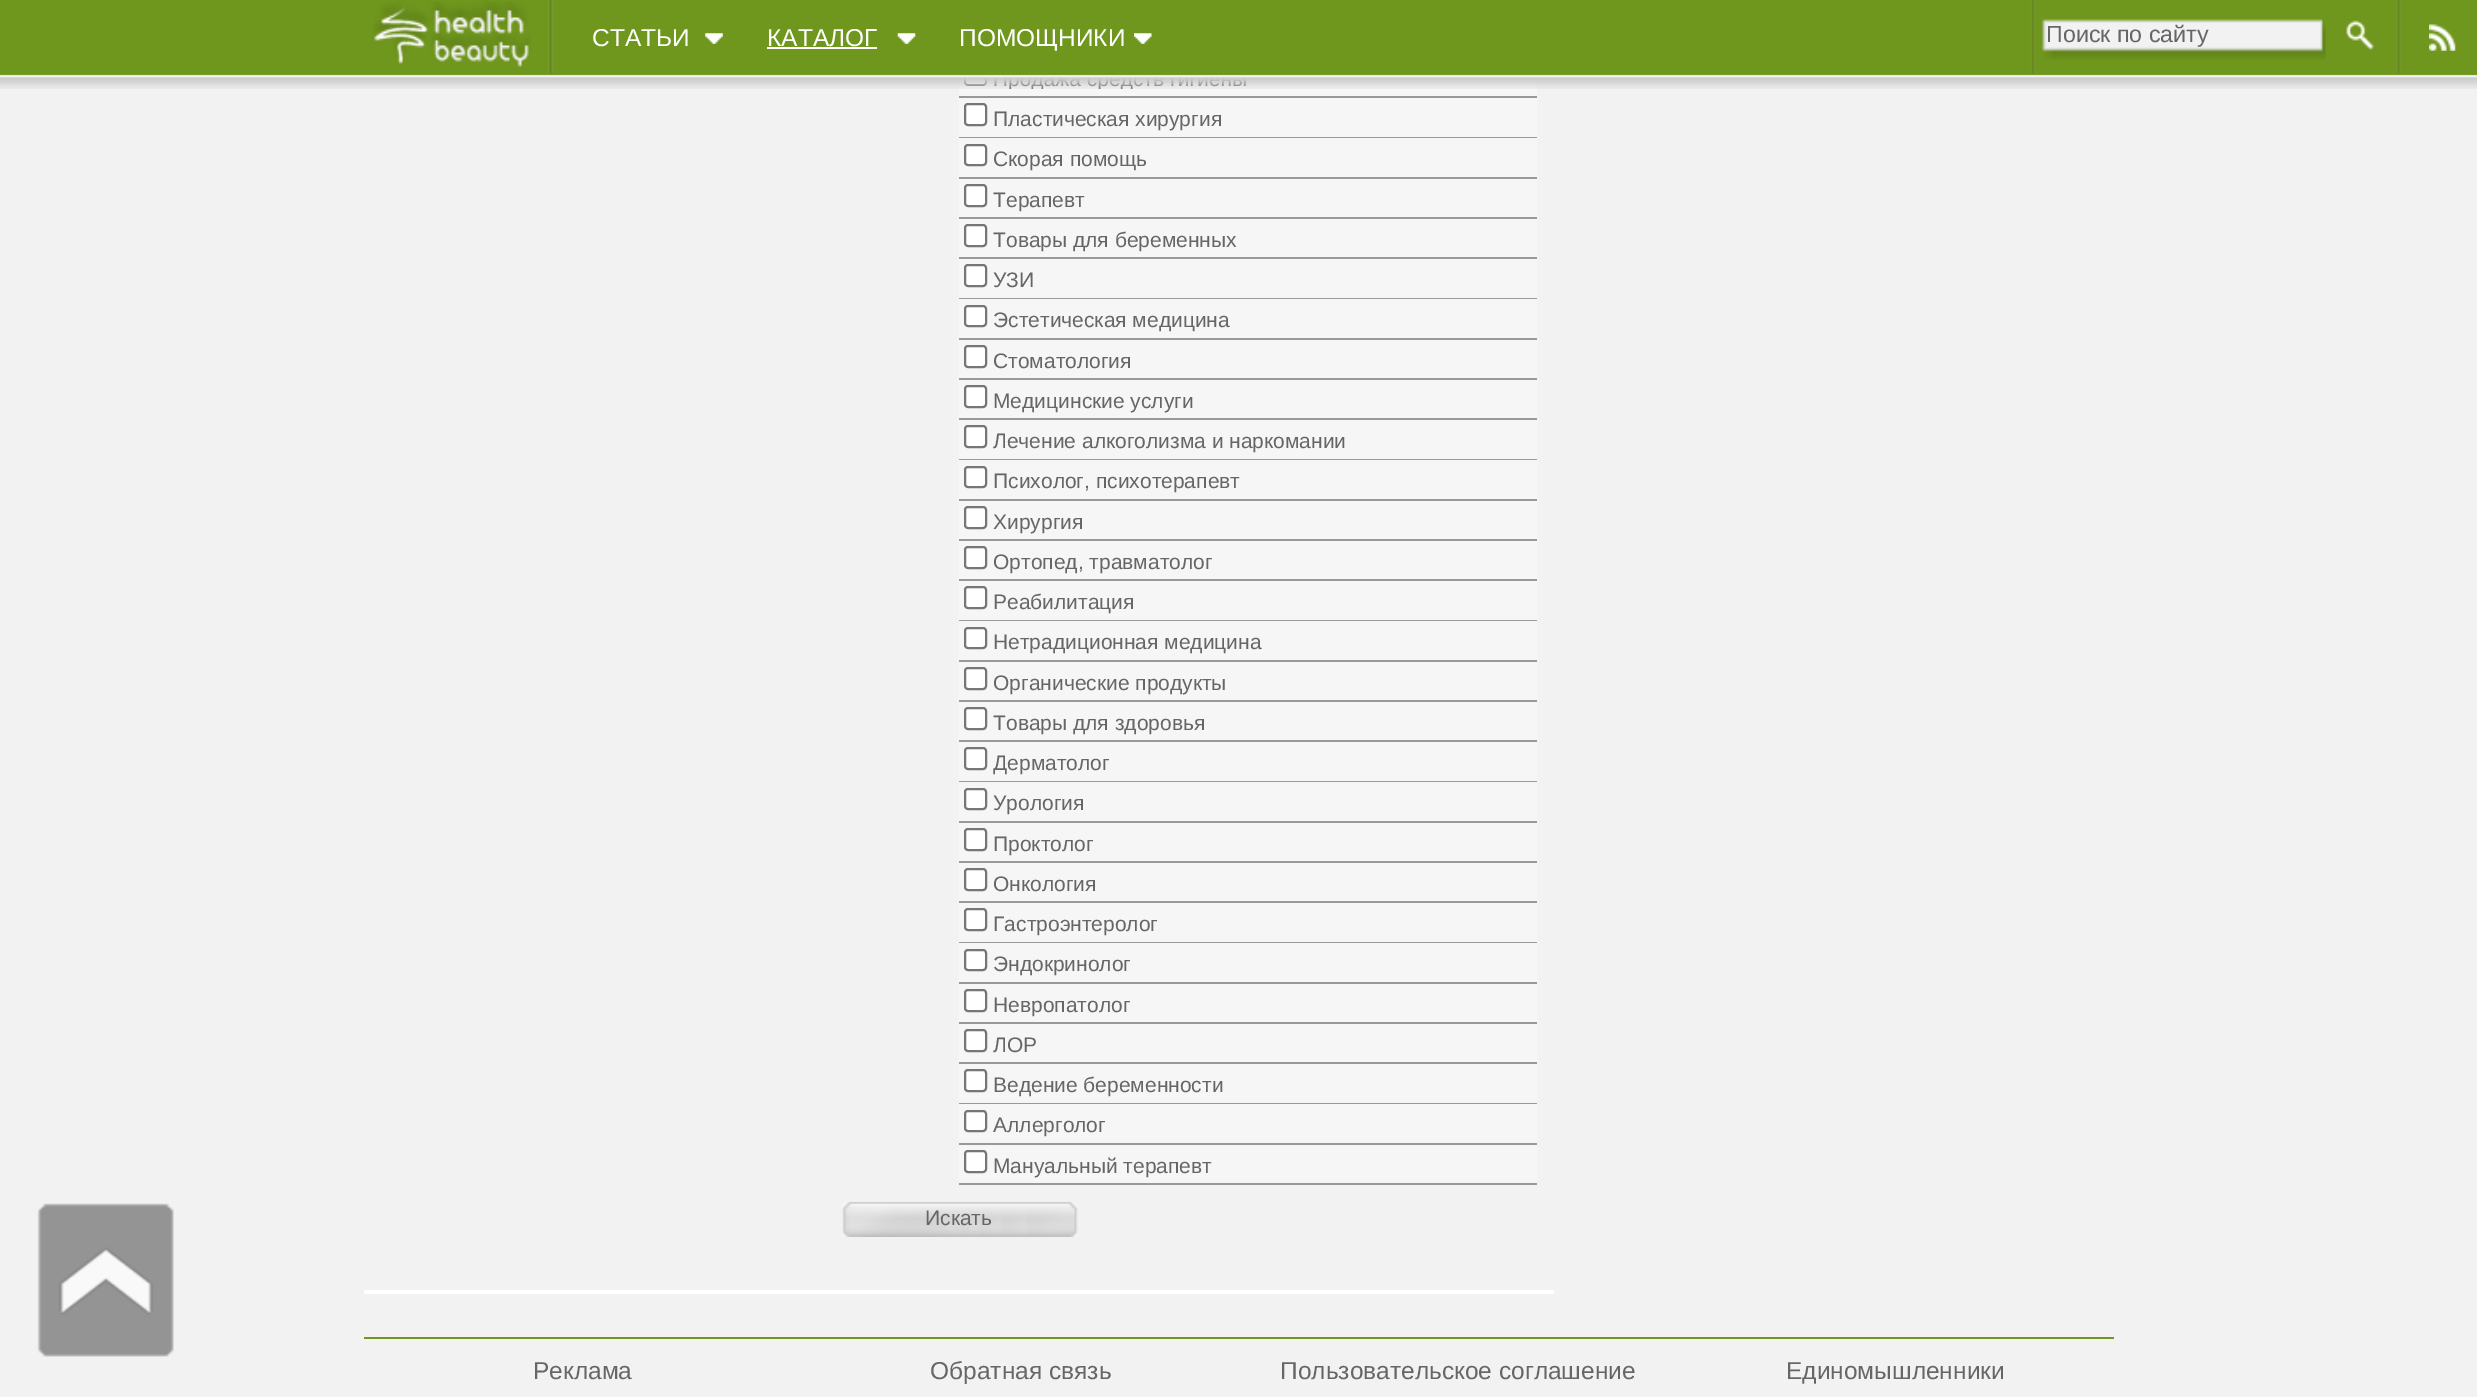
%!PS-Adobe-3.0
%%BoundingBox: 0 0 2477 1397
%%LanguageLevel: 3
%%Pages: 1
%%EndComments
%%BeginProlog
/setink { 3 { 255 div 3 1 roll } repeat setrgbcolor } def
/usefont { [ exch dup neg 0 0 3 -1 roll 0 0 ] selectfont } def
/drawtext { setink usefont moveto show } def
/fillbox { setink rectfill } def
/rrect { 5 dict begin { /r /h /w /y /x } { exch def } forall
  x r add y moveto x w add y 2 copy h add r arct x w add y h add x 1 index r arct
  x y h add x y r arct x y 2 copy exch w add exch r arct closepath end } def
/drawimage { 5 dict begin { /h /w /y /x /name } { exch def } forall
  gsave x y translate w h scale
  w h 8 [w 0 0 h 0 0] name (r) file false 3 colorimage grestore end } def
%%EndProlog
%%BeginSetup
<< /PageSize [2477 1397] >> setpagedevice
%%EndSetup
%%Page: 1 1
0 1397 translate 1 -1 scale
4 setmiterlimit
0 0 2477 1397 242 242 242 fillbox
959 78 578 18 246 246 246 fillbox
255 255 255 setink
965 64 21 21 3 rrect gsave fill grestore
118 118 118 setink
2 setlinewidth
stroke
(assets/img12.rgb) 0 75 2477 14 drawimage
(assets/img1.rgb) 0 0 2477 76 drawimage
(assets/img2.rgb) 373 1 158 66 drawimage
(assets/img3.rgb) 548 0 6 74 drawimage
(assets/img4.rgb) 705 33 18 11 drawimage
(СТАТЬИ) 592 46 /LiberationSans-Regular 24.5 255 255 255 drawtext
(assets/img5.rgb) 897 33 19 11 drawimage
(КАТАЛОГ) 767 46 /LiberationSans-Regular 24.5 255 255 255 drawtext
767 47 110 2 255 255 255 fillbox
(assets/img6.rgb) 1134 33 18 11 drawimage
(ПОМОЩНИКИ) 959 46 /LiberationSans-Regular 24.5 255 255 255 drawtext
(assets/img7.rgb) 2030 0 6 74 drawimage
(assets/img8.rgb) 2041 19 285 41 drawimage
(Поиск по сайту) 2046 42 /LiberationSans-Regular 23.25 102 102 102 drawtext
(assets/img9.rgb) 2346 20 28 30 drawimage
(assets/img10.rgb) 2396 0 6 74 drawimage
(assets/img11.rgb) 2429 24 27 27 drawimage
959 96 578 2 153 153 153 fillbox
959 98 578 39 246 246 246 fillbox
959 137 578 1 153 153 153 fillbox
255 255 255 setink
965 104 21 21 3 rrect gsave fill grestore
118 118 118 setink
stroke
(Пластическая хирургия) 993 126 /LiberationSans-Regular 21 102 102 102 drawtext
959 138 578 39 246 246 246 fillbox
959 177 578 2 153 153 153 fillbox
255 255 255 setink
965 145 21 20 3 rrect gsave fill grestore
118 118 118 setink
stroke
(Скорая помощь) 993 166 /LiberationSans-Regular 21 102 102 102 drawtext
959 179 578 38 246 246 246 fillbox
959 217 578 2 153 153 153 fillbox
255 255 255 setink
965 185 21 21 3 rrect gsave fill grestore
118 118 118 setink
stroke
(Терапевт) 993 207 /LiberationSans-Regular 21 102 102 102 drawtext
959 219 578 38 246 246 246 fillbox
959 257 578 2 153 153 153 fillbox
255 255 255 setink
965 225 21 21 3 rrect gsave fill grestore
118 118 118 setink
stroke
(Товары для беременных) 993 247 /LiberationSans-Regular 21 102 102 102 drawtext
959 259 578 39 246 246 246 fillbox
959 298 578 1 153 153 153 fillbox
255 255 255 setink
965 265 21 21 3 rrect gsave fill grestore
118 118 118 setink
stroke
(УЗИ) 993 287 /LiberationSans-Regular 21 102 102 102 drawtext
959 299 578 39 246 246 246 fillbox
959 338 578 2 153 153 153 fillbox
255 255 255 setink
965 306 21 20 3 rrect gsave fill grestore
118 118 118 setink
stroke
(Эстетическая медицина) 993 327 /LiberationSans-Regular 21 102 102 102 drawtext
959 340 578 38 246 246 246 fillbox
959 378 578 2 153 153 153 fillbox
255 255 255 setink
965 346 21 21 3 rrect gsave fill grestore
118 118 118 setink
stroke
(Стоматология) 993 368 /LiberationSans-Regular 21 102 102 102 drawtext
959 380 578 38 246 246 246 fillbox
959 418 578 2 153 153 153 fillbox
255 255 255 setink
965 386 21 21 3 rrect gsave fill grestore
118 118 118 setink
stroke
(Медицинские услуги) 993 408 /LiberationSans-Regular 21 102 102 102 drawtext
959 420 578 39 246 246 246 fillbox
959 459 578 1 153 153 153 fillbox
255 255 255 setink
965 426 21 21 3 rrect gsave fill grestore
118 118 118 setink
stroke
(Лечение алкоголизма и наркомании) 993 448 /LiberationSans-Regular 21 102 102 102 drawtext
959 460 578 39 246 246 246 fillbox
959 499 578 2 153 153 153 fillbox
255 255 255 setink
965 467 21 20 3 rrect gsave fill grestore
118 118 118 setink
stroke
(Психолог, психотерапевт) 993 488 /LiberationSans-Regular 21 102 102 102 drawtext
959 501 578 38 246 246 246 fillbox
959 539 578 2 153 153 153 fillbox
255 255 255 setink
965 507 21 21 3 rrect gsave fill grestore
118 118 118 setink
stroke
(Хирургия) 993 529 /LiberationSans-Regular 21 102 102 102 drawtext
959 541 578 38 246 246 246 fillbox
959 579 578 2 153 153 153 fillbox
255 255 255 setink
965 547 21 21 3 rrect gsave fill grestore
118 118 118 setink
stroke
(Ортопед, травматолог) 993 569 /LiberationSans-Regular 21 102 102 102 drawtext
959 581 578 39 246 246 246 fillbox
959 620 578 1 153 153 153 fillbox
255 255 255 setink
965 587 21 21 3 rrect gsave fill grestore
118 118 118 setink
stroke
(Реабилитация) 993 609 /LiberationSans-Regular 21 102 102 102 drawtext
959 621 578 39 246 246 246 fillbox
959 660 578 2 153 153 153 fillbox
255 255 255 setink
965 628 21 20 3 rrect gsave fill grestore
118 118 118 setink
stroke
(Нетрадиционная медицина) 993 649 /LiberationSans-Regular 21 102 102 102 drawtext
959 662 578 38 246 246 246 fillbox
959 700 578 2 153 153 153 fillbox
255 255 255 setink
965 668 21 21 3 rrect gsave fill grestore
118 118 118 setink
stroke
(Органические продукты) 993 690 /LiberationSans-Regular 21 102 102 102 drawtext
959 702 578 38 246 246 246 fillbox
959 740 578 2 153 153 153 fillbox
255 255 255 setink
965 708 21 21 3 rrect gsave fill grestore
118 118 118 setink
stroke
(Товары для здоровья) 993 730 /LiberationSans-Regular 21 102 102 102 drawtext
959 742 578 39 246 246 246 fillbox
959 781 578 1 153 153 153 fillbox
255 255 255 setink
965 748 21 21 3 rrect gsave fill grestore
118 118 118 setink
stroke
(Дерматолог) 993 770 /LiberationSans-Regular 21 102 102 102 drawtext
959 782 578 39 246 246 246 fillbox
959 821 578 2 153 153 153 fillbox
255 255 255 setink
965 789 21 20 3 rrect gsave fill grestore
118 118 118 setink
stroke
(Урология) 993 810 /LiberationSans-Regular 21 102 102 102 drawtext
959 823 578 38 246 246 246 fillbox
959 861 578 2 153 153 153 fillbox
255 255 255 setink
965 829 21 21 3 rrect gsave fill grestore
118 118 118 setink
stroke
(Проктолог) 993 851 /LiberationSans-Regular 21 102 102 102 drawtext
959 863 578 38 246 246 246 fillbox
959 901 578 2 153 153 153 fillbox
255 255 255 setink
965 869 21 21 3 rrect gsave fill grestore
118 118 118 setink
stroke
(Онкология) 993 891 /LiberationSans-Regular 21 102 102 102 drawtext
959 903 578 39 246 246 246 fillbox
959 942 578 1 153 153 153 fillbox
255 255 255 setink
965 909 21 21 3 rrect gsave fill grestore
118 118 118 setink
stroke
(Гастроэнтеролог) 993 931 /LiberationSans-Regular 21 102 102 102 drawtext
959 943 578 39 246 246 246 fillbox
959 982 578 2 153 153 153 fillbox
255 255 255 setink
965 950 21 20 3 rrect gsave fill grestore
118 118 118 setink
stroke
(Эндокринолог) 993 971 /LiberationSans-Regular 21 102 102 102 drawtext
959 984 578 38 246 246 246 fillbox
959 1022 578 2 153 153 153 fillbox
255 255 255 setink
965 990 21 21 3 rrect gsave fill grestore
118 118 118 setink
stroke
(Невропатолог) 993 1012 /LiberationSans-Regular 21 102 102 102 drawtext
959 1024 578 38 246 246 246 fillbox
959 1062 578 2 153 153 153 fillbox
255 255 255 setink
965 1030 21 21 3 rrect gsave fill grestore
118 118 118 setink
stroke
(ЛОР) 993 1052 /LiberationSans-Regular 21 102 102 102 drawtext
959 1064 578 39 246 246 246 fillbox
959 1103 578 1 153 153 153 fillbox
255 255 255 setink
965 1070 21 21 3 rrect gsave fill grestore
118 118 118 setink
stroke
(Ведение беременности) 993 1092 /LiberationSans-Regular 21 102 102 102 drawtext
959 1104 578 39 246 246 246 fillbox
959 1143 578 2 153 153 153 fillbox
255 255 255 setink
965 1111 21 20 3 rrect gsave fill grestore
118 118 118 setink
stroke
(Аллерголог) 993 1132 /LiberationSans-Regular 21 102 102 102 drawtext
959 1145 578 38 246 246 246 fillbox
959 1183 578 2 153 153 153 fillbox
255 255 255 setink
965 1151 21 21 3 rrect gsave fill grestore
118 118 118 setink
stroke
(Мануальный терапевт) 993 1173 /LiberationSans-Regular 21 102 102 102 drawtext
(assets/img13.rgb) 842 1202 236 35 drawimage
(Искать) 925 1225 /LiberationSans-Regular 21 102 102 102 drawtext
364 1290 1190 4 255 255 255 fillbox
(assets/img14.rgb) 37 1203 137 154 drawimage
364 1337 1750 2 112 152 30 fillbox
(Реклама) 533 1379 /LiberationSans-Regular 24.5 102 102 102 drawtext
(Обратная связь) 930 1379 /LiberationSans-Regular 24.5 102 102 102 drawtext
(Пользовательское соглашение) 1280 1379 /LiberationSans-Regular 24.5 102 102 102 drawtext
(Единомышленники) 1786 1379 /LiberationSans-Regular 24.5 102 102 102 drawtext
showpage
%%EOF
